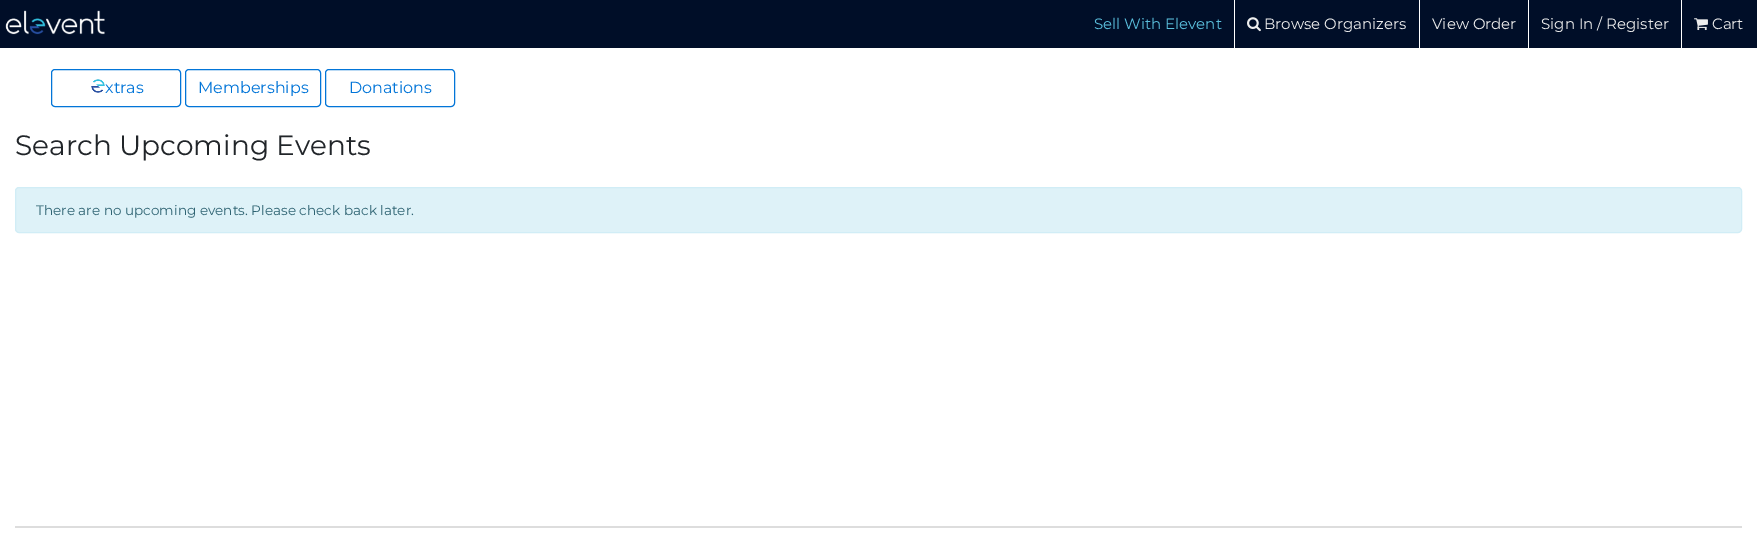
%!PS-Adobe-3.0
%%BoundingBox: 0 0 1757 539
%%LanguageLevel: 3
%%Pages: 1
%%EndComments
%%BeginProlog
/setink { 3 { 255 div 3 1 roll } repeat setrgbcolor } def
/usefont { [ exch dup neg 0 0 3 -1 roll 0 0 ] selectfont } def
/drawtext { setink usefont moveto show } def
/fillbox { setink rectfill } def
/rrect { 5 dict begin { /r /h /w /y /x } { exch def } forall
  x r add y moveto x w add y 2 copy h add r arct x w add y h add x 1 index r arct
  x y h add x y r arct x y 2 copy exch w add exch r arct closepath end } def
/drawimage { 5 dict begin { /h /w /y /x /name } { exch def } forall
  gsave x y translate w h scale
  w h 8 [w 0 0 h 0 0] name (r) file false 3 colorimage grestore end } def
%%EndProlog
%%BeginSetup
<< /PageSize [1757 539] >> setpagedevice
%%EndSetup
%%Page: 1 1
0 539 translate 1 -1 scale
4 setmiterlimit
0 0 1757 539 255 255 255 fillbox
0 0 1757 48 0 14 40 fillbox
(assets/img1.rgb) 5 10 100 25 drawimage
1234 0 1 48 255 255 255 fillbox
(Sell With Elevent) 1094 29 /Montserrat-Thin 15 91 192 222 drawtext
1419 0 1 48 255 255 255 fillbox
(assets/img2.rgb) 1247 17 14 15 drawimage
(Browse Organizers) 1264 29 /Montserrat-Thin 15 238 238 238 drawtext
1528 0 1 48 255 255 255 fillbox
(View Order) 1432 29 /Montserrat-Thin 15 238 238 238 drawtext
1681 0 1 48 255 255 255 fillbox
(Sign In / Register) 1541 29 /Montserrat-Thin 15 238 238 238 drawtext
(assets/img3.rgb) 1694 18 14 13 drawimage
(Cart) 1712 29 /Montserrat-Thin 15 238 238 238 drawtext
2 117 216 setink
51.5 69.5 129 37 3.5 rrect stroke
(assets/img4.rgb) 91 79 14 14 drawimage
(xtras) 105 93 /Montserrat-Thin 16 2 117 216 drawtext
185.5 69.5 135 37 3.5 rrect stroke
(Memberships) 198 93 /Montserrat-Thin 16 2 117 216 drawtext
325.5 69.5 129 37 3.5 rrect stroke
(Donations) 349 93 /Montserrat-Thin 16 2 117 216 drawtext
(Search Upcoming Events) 15 155 /Montserrat-Thin 28 33 37 41 drawtext
222 242 248 setink
15.5 187.5 1726 45 3.5 rrect gsave fill grestore
209 237 246 setink
stroke
(There are no upcoming events. Please check back later.) 36 215 /Montserrat-Thin 13.6 47 100 115 drawtext
15 526 1727 2 221 221 221 fillbox
showpage
%%EOF
